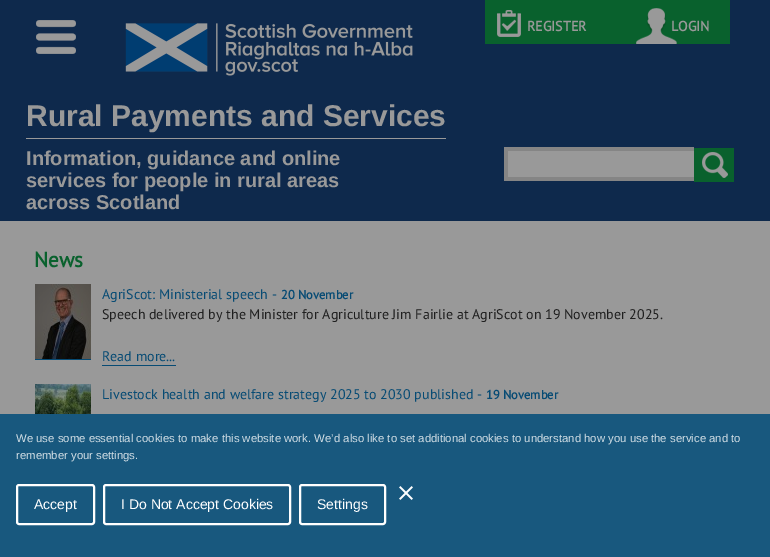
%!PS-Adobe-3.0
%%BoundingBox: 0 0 770 557
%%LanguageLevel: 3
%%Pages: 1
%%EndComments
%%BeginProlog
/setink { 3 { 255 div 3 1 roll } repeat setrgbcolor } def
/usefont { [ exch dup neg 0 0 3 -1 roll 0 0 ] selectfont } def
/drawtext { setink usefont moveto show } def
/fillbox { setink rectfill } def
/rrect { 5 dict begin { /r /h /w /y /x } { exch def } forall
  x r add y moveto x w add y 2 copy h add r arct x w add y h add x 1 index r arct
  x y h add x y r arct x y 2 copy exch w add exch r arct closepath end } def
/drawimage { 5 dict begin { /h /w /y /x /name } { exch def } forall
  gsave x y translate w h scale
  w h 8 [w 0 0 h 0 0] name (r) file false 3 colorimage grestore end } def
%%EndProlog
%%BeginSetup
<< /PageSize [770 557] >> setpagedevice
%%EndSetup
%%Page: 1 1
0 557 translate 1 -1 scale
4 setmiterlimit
0 0 770 557 153 153 153 fillbox
0 0 770 221 14 41 76 fillbox
(assets/img1.rgb) 36 20 40 34 drawimage
(assets/img2.rgb) 125 23 288 53 drawimage
485 0 245 44 9 97 45 fillbox
(assets/img3.rgb) 497 10 24 27 drawimage
(REGISTER) 527 31 /PTSans-Bold 14 153 153 153 drawtext
(assets/img4.rgb) 635 8 42 36 drawimage
(LOGIN) 671 31 /PTSans-Bold 14 153 153 153 drawtext
26 138 420 1 153 153 153 fillbox
(Rural Payments and Services) 26 126 /LiberationSans-Bold 30 153 153 153 drawtext
(Information, guidance and online) 26 165 /LiberationSans-Bold 20 153 153 153 drawtext
(services for people in rural areas) 26 187 /LiberationSans-Bold 20 153 153 153 drawtext
(across Scotland) 26 209 /LiberationSans-Bold 20 153 153 153 drawtext
508 151 186 26 153 153 153 fillbox
504 147 190 4 133 133 133 fillbox
504 177 190 4 133 133 133 fillbox
504 147 4 34 133 133 133 fillbox
694 148 40 34 9 97 45 fillbox
(assets/img5.rgb) 702 152 26 26 drawimage
(News) 34 267 /PTSans-Bold 21 9 97 45 drawtext
35 359 56 1 7 75 116 fillbox
(assets/img6.rgb) 35 284 56 75 drawimage
(AgriScot: Ministerial speech -) 102 299 /PTSans-Regular 14 7 75 116 drawtext
(20 November) 281 299 /PTSans-Bold 12.5 7 75 116 drawtext
(Speech delivered by the Minister for Agriculture Jim Fairlie at AgriScot on 19 November 2025.) 102 319 /PTSans-Regular 14 31 31 31 drawtext
(Read more...) 102 361 /PTSans-Regular 14 7 75 116 drawtext
102 365 74 1 7 75 116 fillbox
(assets/img7.rgb) 35 384 56 30 drawimage
(Livestock health and welfare strategy 2025 to 2030 published -) 102 399 /PTSans-Regular 14 7 75 116 drawtext
(19 November) 486 399 /PTSans-Bold 12.5 7 75 116 drawtext
0 414 770 143 24 88 126 fillbox
(We use some essential cookies to make this website work. We’d also like to set additional cookies to understand how you use the service and to) 16 442 /LiberationSans-Regular 11.35 209 222 229 drawtext
(remember your settings.) 16 459 /LiberationSans-Regular 11.35 209 222 229 drawtext
(assets/img8.rgb) 399 486 14 14 drawimage
255 255 255 setink
2 setlinewidth
17 485 77 39 2 rrect stroke
(Accept) 34 509 /LiberationSans-Regular 14 255 255 255 drawtext
104 485 186 39 2 rrect stroke
(I Do Not Accept Cookies) 121 509 /LiberationSans-Regular 14 255 255 255 drawtext
300 485 85 39 2 rrect stroke
(Settings) 317 509 /LiberationSans-Regular 14 255 255 255 drawtext
showpage
%%EOF
